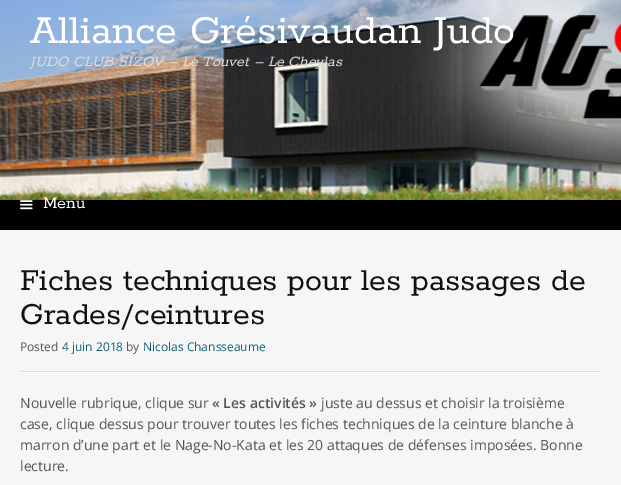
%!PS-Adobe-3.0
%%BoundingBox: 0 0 621 485
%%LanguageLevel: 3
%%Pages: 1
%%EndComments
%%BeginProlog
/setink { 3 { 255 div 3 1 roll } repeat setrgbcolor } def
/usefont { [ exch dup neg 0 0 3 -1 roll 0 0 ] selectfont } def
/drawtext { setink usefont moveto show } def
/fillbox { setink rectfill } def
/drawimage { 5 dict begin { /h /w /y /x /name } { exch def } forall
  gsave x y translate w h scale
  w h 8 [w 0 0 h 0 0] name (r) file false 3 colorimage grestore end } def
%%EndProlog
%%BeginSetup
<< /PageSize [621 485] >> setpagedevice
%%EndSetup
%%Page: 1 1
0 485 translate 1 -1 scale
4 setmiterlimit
0 0 621 485 246 246 246 fillbox
0 200 621 30 0 0 0 fillbox
(assets/img1.rgb) 0 0 621 200 drawimage
(Alliance Grésivaudan Judo) 30 43 /Rokkitt-Regular 44 255 255 255 drawtext
(JUDO CLUB SIZOV – Le Touvet – Le Cheylas) 30 66 /Rokkitt-Italic 16 221 221 221 drawtext
(assets/img2.rgb) 20 200 13 10 drawimage
(Menu) 43 208 /Rokkitt-Regular 18 255 255 255 drawtext
20 372 581 1 255 255 255 fillbox
20 371 581 1 221 221 221 fillbox
(Fiches techniques pour les passages de) 20 290 /Rokkitt-Regular 34 17 17 17 drawtext
(Grades/ceintures) 20 324 /Rokkitt-Regular 34 17 17 17 drawtext
(Posted) 20 351 /OpenSans-Regular 12 85 85 85 drawtext
(4 juin 2018) 62 351 /OpenSans-Regular 12 16 97 119 drawtext
(by) 126 351 /OpenSans-Regular 12 85 85 85 drawtext
(Nicolas Chansseaume) 143 351 /OpenSans-Regular 12 16 97 119 drawtext
(Nouvelle rubrique, clique sur) 20 408 /OpenSans-Regular 14 85 85 85 drawtext
(« Les activités ») 212 408 /OpenSans-SemiBold 14 85 85 85 drawtext
(juste au dessus et choisir la troisième) 321 408 /OpenSans-Regular 14 85 85 85 drawtext
(case, clique dessus pour trouver toutes les fiches techniques de la ceinture blanche à) 20 429 /OpenSans-Regular 14 85 85 85 drawtext
(marron d’une part et le Nage-No-Kata et les 20 attaques de défenses imposées. Bonne) 20 450 /OpenSans-Regular 14 85 85 85 drawtext
(lecture.) 20 471 /OpenSans-Regular 14 85 85 85 drawtext
showpage
%%EOF
